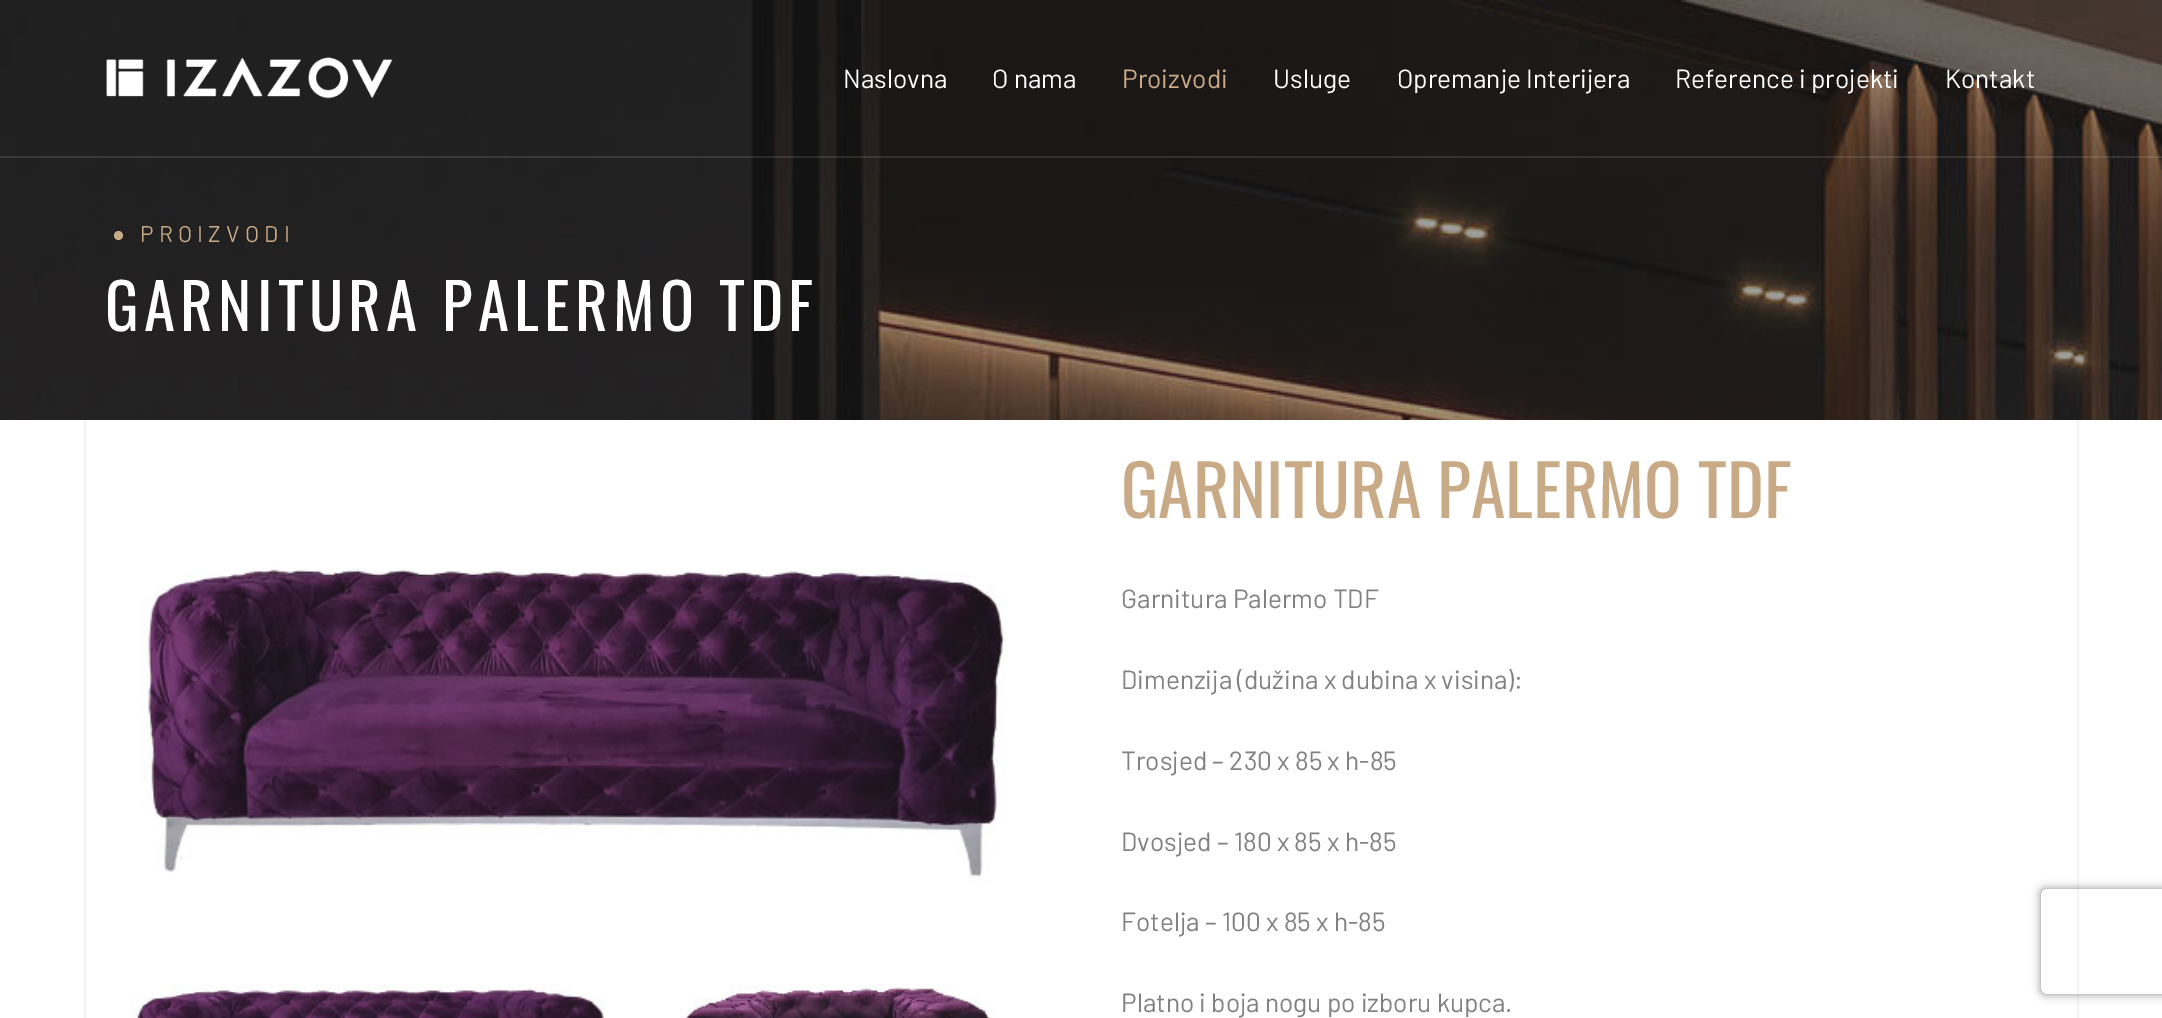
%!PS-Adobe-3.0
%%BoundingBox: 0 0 2162 1018
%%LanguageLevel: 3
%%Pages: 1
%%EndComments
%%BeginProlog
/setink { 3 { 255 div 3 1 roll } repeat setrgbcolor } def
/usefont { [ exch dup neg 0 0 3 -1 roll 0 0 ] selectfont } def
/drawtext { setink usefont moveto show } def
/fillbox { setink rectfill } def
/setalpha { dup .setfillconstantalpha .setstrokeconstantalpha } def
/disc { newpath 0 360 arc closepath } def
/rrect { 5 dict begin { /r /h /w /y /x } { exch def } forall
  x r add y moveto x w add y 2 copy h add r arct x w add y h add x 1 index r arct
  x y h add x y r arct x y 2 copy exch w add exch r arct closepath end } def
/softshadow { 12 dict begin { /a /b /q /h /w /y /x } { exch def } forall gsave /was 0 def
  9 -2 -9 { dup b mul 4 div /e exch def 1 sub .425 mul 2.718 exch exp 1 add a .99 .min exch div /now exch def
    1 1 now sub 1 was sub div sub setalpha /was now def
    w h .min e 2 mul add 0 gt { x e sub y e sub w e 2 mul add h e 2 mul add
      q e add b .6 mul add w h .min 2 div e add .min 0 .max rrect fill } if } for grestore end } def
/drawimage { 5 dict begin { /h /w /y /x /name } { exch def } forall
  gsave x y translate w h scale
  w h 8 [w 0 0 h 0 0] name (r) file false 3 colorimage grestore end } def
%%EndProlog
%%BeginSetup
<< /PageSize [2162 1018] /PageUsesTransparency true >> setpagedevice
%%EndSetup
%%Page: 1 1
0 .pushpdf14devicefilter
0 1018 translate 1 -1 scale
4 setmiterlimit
0 0 2162 1018 255 255 255 fillbox
243 243 243 setink
2079 0 moveto 2079 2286 lineto 2077 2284 lineto 2077 0 lineto closepath fill
84 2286 moveto 84 0 lineto 86 0 lineto 86 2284 lineto closepath fill
(assets/img2.rgb) 0 0 2162 420 drawimage
0.1 setalpha
0 156 2162 2 255 255 255 fillbox
1 setalpha
(assets/img1.rgb) 106 57 287 42 drawimage
(Naslovna) 843 88 /Barlow-Regular 26.25 255 255 255 drawtext
(O nama) 992 88 /Barlow-Regular 26.25 255 255 255 drawtext
(Proizvodi) 1122 88 /Barlow-Regular 26.25 201 170 135 drawtext
(Usluge) 1273 88 /Barlow-Regular 26.25 255 255 255 drawtext
(Opremanje Interijera) 1397 88 /Barlow-Regular 26.25 255 255 255 drawtext
(Reference i projekti) 1675 88 /Barlow-Regular 26.25 255 255 255 drawtext
(Kontakt) 1945 88 /Barlow-Regular 26.25 255 255 255 drawtext
201 170 135 setink
118.5 235.5 4.5 disc fill
/Barlow-Regular 22.75 usefont
140 242 moveto 5.25 0 (PROIZVODI) ashow
/Oswald-Regular 63 usefont
255 255 255 setink
105 331 moveto 5.25 0 (GARNITURA PALERMO TDF) ashow
(assets/img3.rgb) 130 567 876 451 drawimage
(GARNITURA PALERMO TDF) 1121 518 /Oswald-Regular 70 201 170 135 drawtext
(Garnitura Palermo TDF) 1121 608 /Barlow-Regular 26.25 129 129 129 drawtext
(Dimenzija \(dužina x dubina x visina\):) 1121 689 /Barlow-Regular 26.25 129 129 129 drawtext
(Trosjed – 230 x 85 x h-85) 1121 770 /Barlow-Regular 26.25 129 129 129 drawtext
(Dvosjed – 180 x 85 x h-85) 1121 851 /Barlow-Regular 26.25 129 129 129 drawtext
(Fotelja – 100 x 85 x h-85) 1121 931 /Barlow-Regular 26.25 129 129 129 drawtext
(Platno i boja nogu po izboru kupca.) 1121 1012 /Barlow-Regular 26.25 129 129 129 drawtext
gsave
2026 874 moveto 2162 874 lineto 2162 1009 lineto 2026 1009 lineto closepath 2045 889 moveto 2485 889 lineto 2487 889 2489 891 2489 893 curveto 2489 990 lineto 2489 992 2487 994 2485 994 curveto 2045 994 lineto 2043 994 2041 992 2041 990 curveto 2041 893 lineto 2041 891 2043 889 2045 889 curveto closepath eoclip newpath
137 137 137 setink
2041 889 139 105 4 4.5 1 softshadow
grestore
.poppdf14devicefilter showpage
%%EOF
